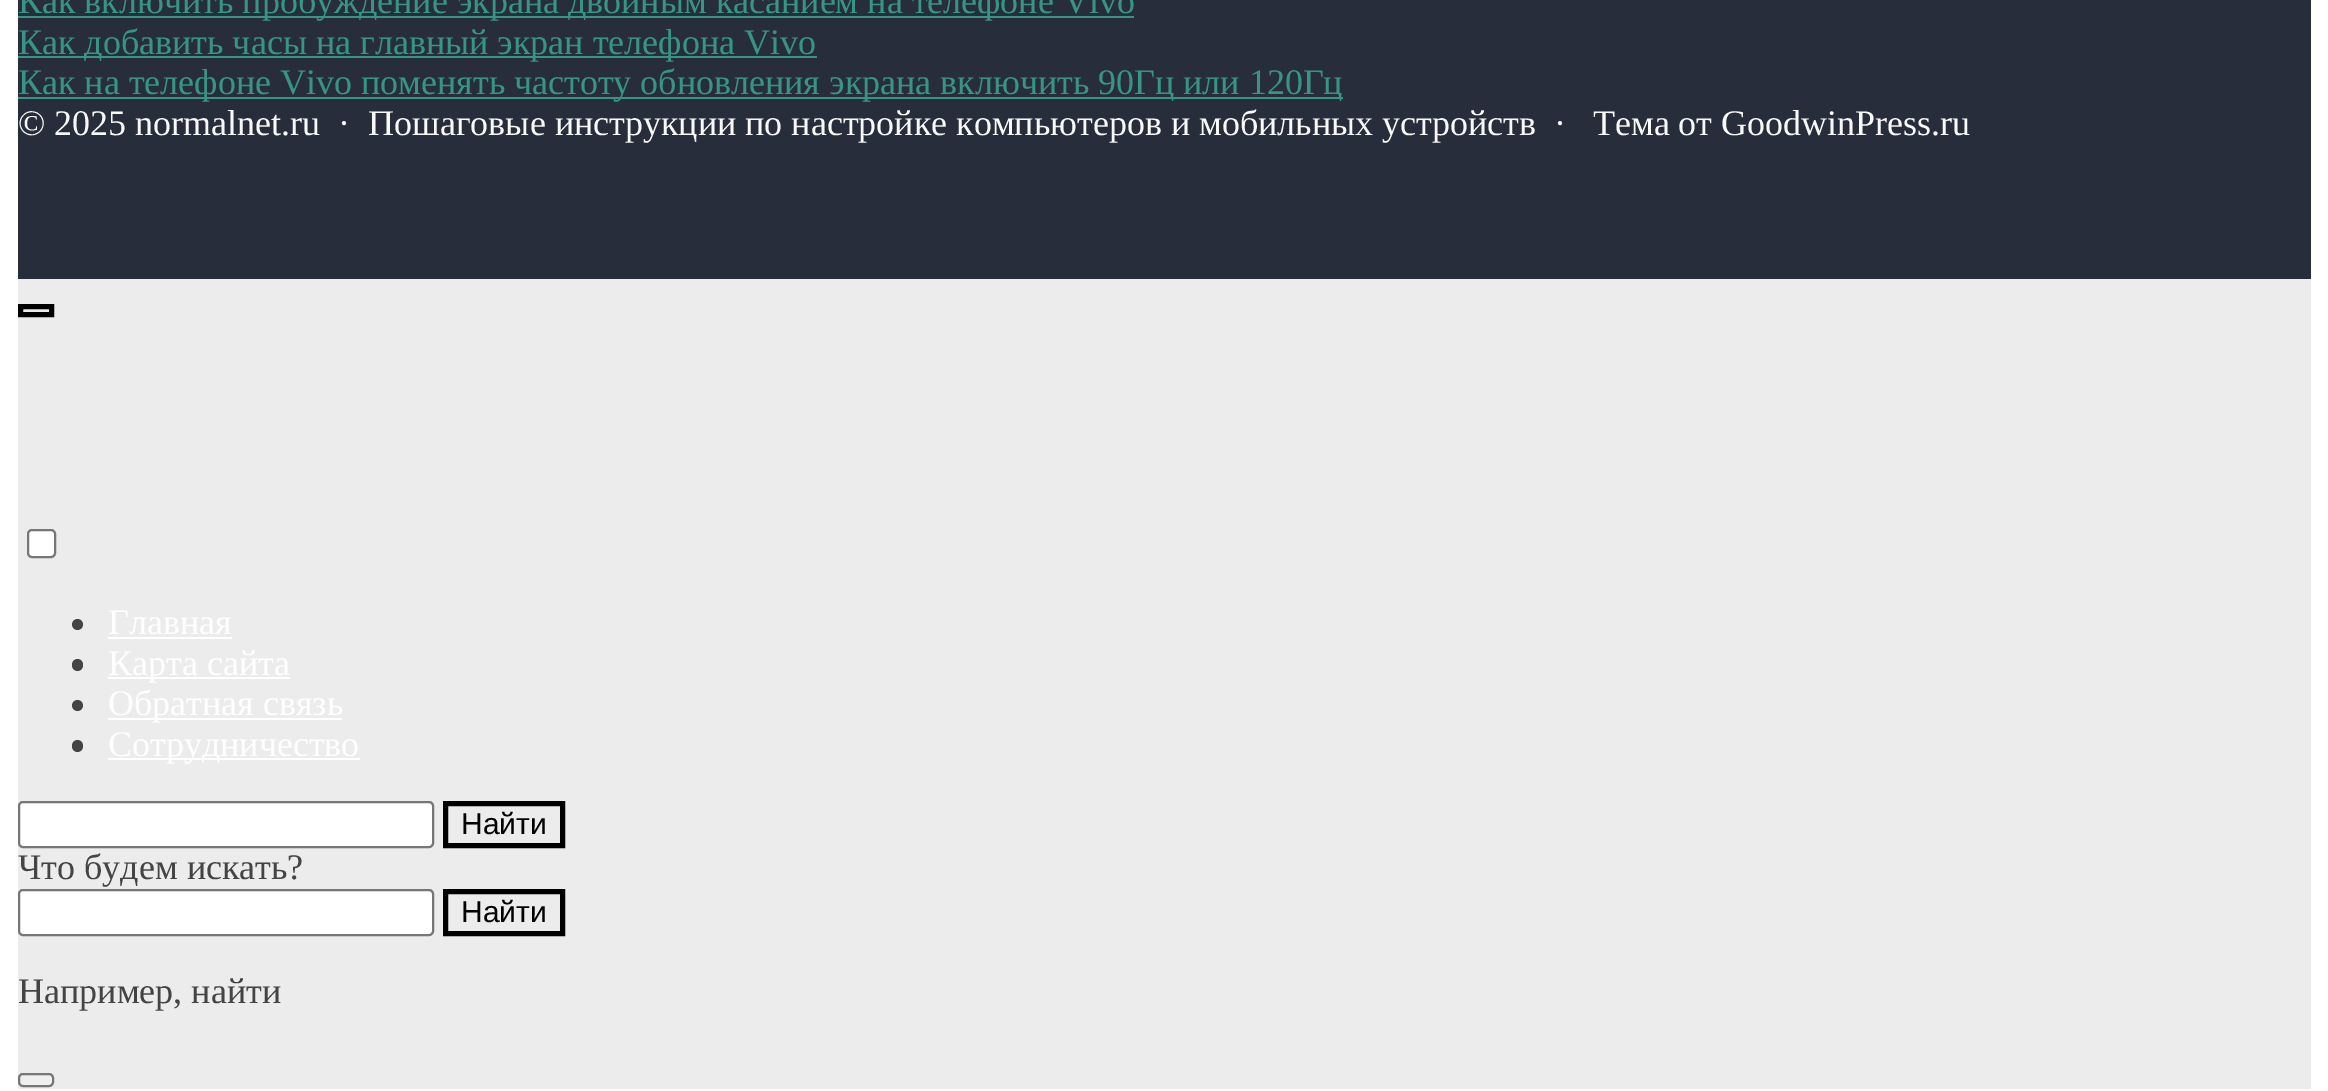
%!PS-Adobe-3.0
%%BoundingBox: 0 0 2328 1091
%%LanguageLevel: 3
%%Pages: 1
%%EndComments
%%BeginProlog
/setink { 3 { 255 div 3 1 roll } repeat setrgbcolor } def
/usefont { [ exch dup neg 0 0 3 -1 roll 0 0 ] selectfont } def
/drawtext { setink usefont moveto show } def
/fillbox { setink rectfill } def
/disc { newpath 0 360 arc closepath } def
/rrect { 5 dict begin { /r /h /w /y /x } { exch def } forall
  x r add y moveto x w add y 2 copy h add r arct x w add y h add x 1 index r arct
  x y h add x y r arct x y 2 copy exch w add exch r arct closepath end } def
%%EndProlog
%%BeginSetup
<< /PageSize [2328 1091] >> setpagedevice
%%EndSetup
%%Page: 1 1
0 1091 translate 1 -1 scale
4 setmiterlimit
0 0 2328 1091 255 255 255 fillbox
18 279 2293 810 236 236 236 fillbox
18 0 2293 279 40 45 60 fillbox
18 16 1116 2 55 150 131 fillbox
(Как включить пробуждение экрана двойным касанием на телефоне Vivo) 18 13 /LiberationSerif-Regular 36 55 150 131 drawtext
18 56 799 2 55 150 131 fillbox
(Как добавить часы на главный экран телефона Vivo) 18 54 /LiberationSerif-Regular 36 55 150 131 drawtext
18 97 1325 2 55 150 131 fillbox
(Как на телефоне Vivo поменять частоту обновления экрана включить 90Гц или 120Гц) 18 94 /LiberationSerif-Regular 36 55 150 131 drawtext
(© 2025 normalnet.ru) 18 135 /LiberationSerif-Regular 36 249 249 249 drawtext
(·) 338 135 /LiberationSerif-Regular 36 249 249 249 drawtext
(Пошаговые инструкции по настройке компьютеров и мобильных устройств  ·   Тема от GoodwinPress.ru) 368 135 /LiberationSerif-Regular 36 249 249 249 drawtext
0 0 0 setink
5 setlinewidth
20.5 306.5 31 8 rectstroke
255 255 255 setink
28 530 27 27 4 rrect gsave fill grestore
118 118 118 setink
2 setlinewidth
stroke
68 68 68 setink
77.5 624.5 5.5 disc fill
(Главная) 108 634 /LiberationSerif-Regular 36 255 255 255 drawtext
108 637 124 2 255 255 255 fillbox
68 68 68 setink
72 659 11 12 5.5 rrect fill
108 677 182 2 255 255 255 fillbox
(Карта сайта) 108 675 /LiberationSerif-Regular 36 255 255 255 drawtext
68 68 68 setink
77.5 705.5 5.5 disc fill
108 718 234 2 255 255 255 fillbox
(Обратная связь) 108 715 /LiberationSerif-Regular 36 255 255 255 drawtext
68 68 68 setink
72 740 11 12 5.5 rrect fill
108 758 252 2 255 255 255 fillbox
(Сотрудничество) 108 756 /LiberationSerif-Regular 36 255 255 255 drawtext
19 802 414 45 4 rrect gsave fill grestore
118 118 118 setink
stroke
0 0 0 setink
5 setlinewidth
445.5 803.5 117 42 rectstroke
(Найти) 461 834 /LiberationSans-Regular 30 0 0 0 drawtext
(Что будем искать?) 18 879 /LiberationSerif-Regular 36 68 68 68 drawtext
255 255 255 setink
19 890 414 45 4 rrect gsave fill grestore
118 118 118 setink
2 setlinewidth
stroke
0 0 0 setink
5 setlinewidth
445.5 891.5 117 42 rectstroke
(Найти) 461 922 /LiberationSans-Regular 30 0 0 0 drawtext
(Например, найти) 18 1003 /LiberationSerif-Regular 36 68 68 68 drawtext
239 239 239 setink
19 1074 34 12 4 rrect gsave fill grestore
118 118 118 setink
2 setlinewidth
stroke
showpage
%%EOF
